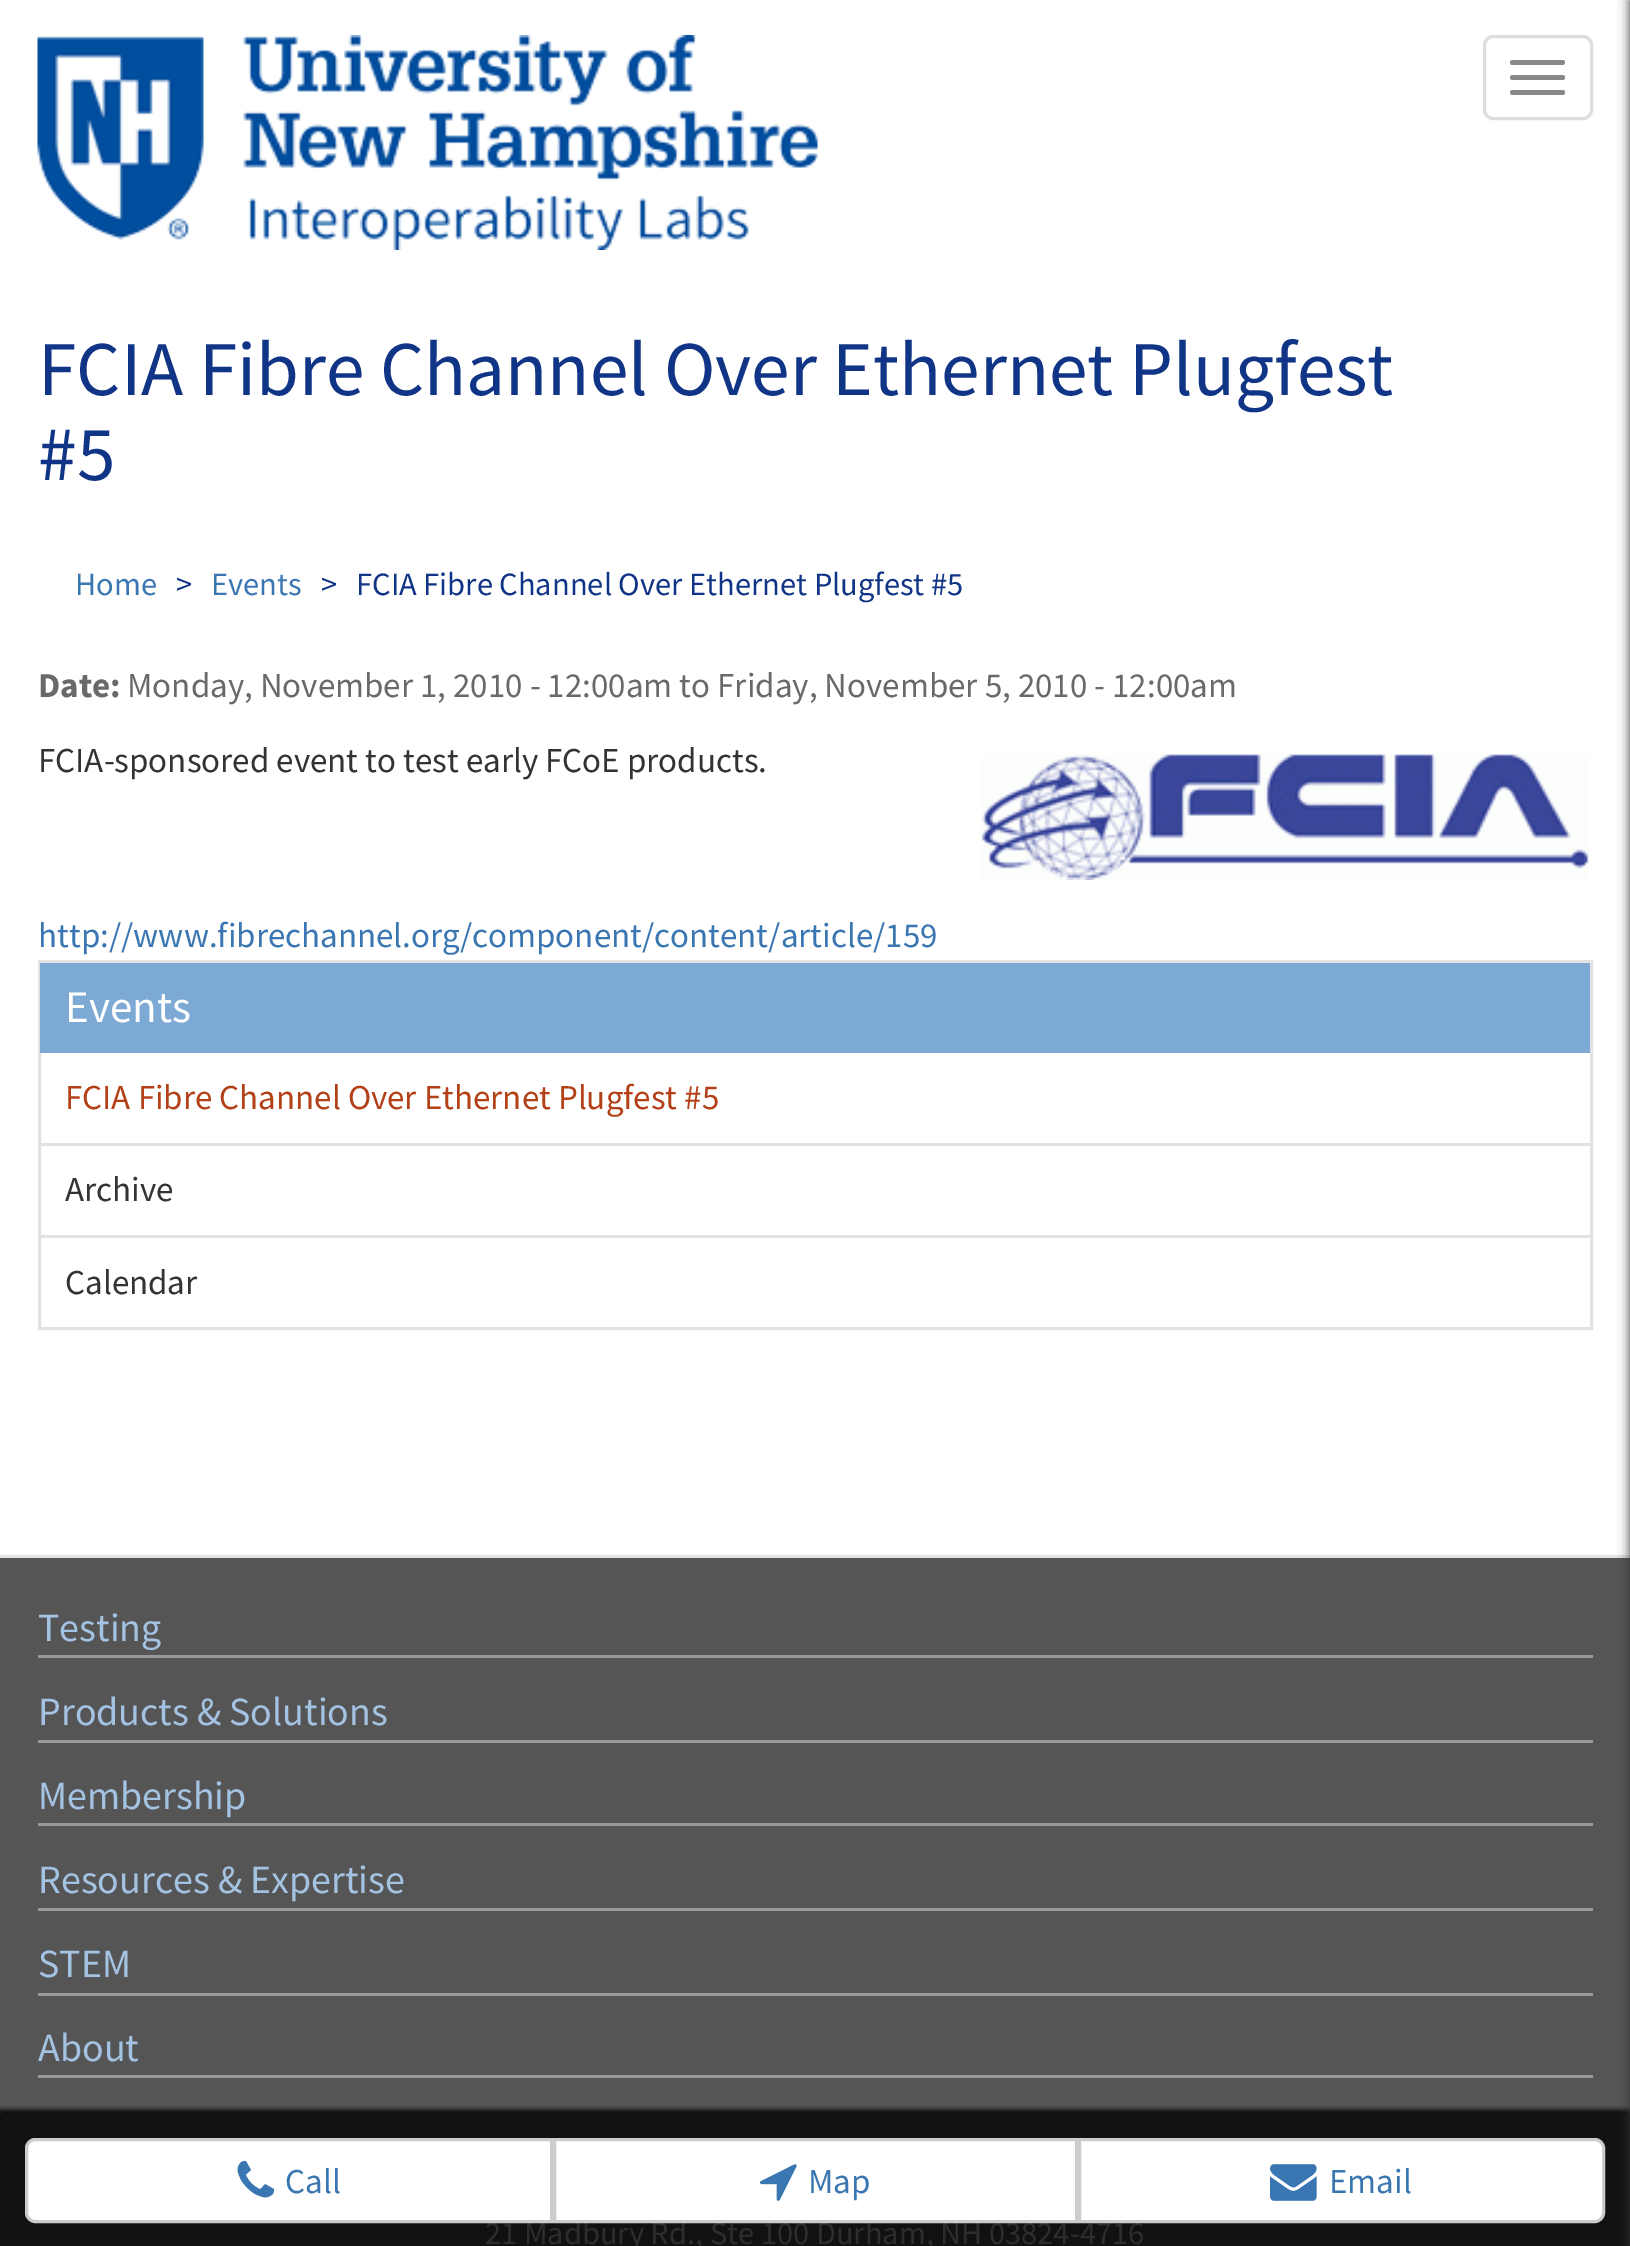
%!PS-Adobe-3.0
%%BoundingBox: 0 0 1630 2246
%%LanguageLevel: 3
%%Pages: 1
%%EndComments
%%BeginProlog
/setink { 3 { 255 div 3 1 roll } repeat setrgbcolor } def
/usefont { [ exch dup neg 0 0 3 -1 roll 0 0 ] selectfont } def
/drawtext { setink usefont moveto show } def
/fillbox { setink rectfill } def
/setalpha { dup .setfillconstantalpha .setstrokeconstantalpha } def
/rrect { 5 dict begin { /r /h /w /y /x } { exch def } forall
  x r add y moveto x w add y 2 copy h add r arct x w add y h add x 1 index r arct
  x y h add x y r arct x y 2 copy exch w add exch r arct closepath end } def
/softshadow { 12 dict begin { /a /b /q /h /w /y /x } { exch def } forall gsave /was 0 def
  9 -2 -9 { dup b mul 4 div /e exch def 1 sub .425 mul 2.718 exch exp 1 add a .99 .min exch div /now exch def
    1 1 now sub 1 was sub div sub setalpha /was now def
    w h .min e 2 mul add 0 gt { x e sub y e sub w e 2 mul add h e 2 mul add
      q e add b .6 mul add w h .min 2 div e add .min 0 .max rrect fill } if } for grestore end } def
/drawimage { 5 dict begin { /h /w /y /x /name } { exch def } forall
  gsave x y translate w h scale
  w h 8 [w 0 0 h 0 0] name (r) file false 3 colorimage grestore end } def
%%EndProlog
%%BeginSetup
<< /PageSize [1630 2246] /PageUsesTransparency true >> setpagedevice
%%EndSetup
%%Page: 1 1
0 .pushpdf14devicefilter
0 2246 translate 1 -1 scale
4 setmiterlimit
0 0 1630 2246 255 255 255 fillbox
(assets/img1.rgb) 37 35 781 215 drawimage
221 221 221 setink
3 setlinewidth
1484.5 36.5 107 82 8.5 rrect stroke
136 136 136 setink
1510 60 55 5 2.5 rrect fill
1510 75 55 5 2.5 rrect fill
1510 90 55 5 2.5 rrect fill
(FCIA Fibre Channel Over Ethernet Plugfest) 38 395 /SourceSansPro-Regular 77.5 16 52 134 drawtext
(#5) 38 480 /SourceSansPro-Regular 77.5 16 52 134 drawtext
(Home) 75 595 /SourceSansPro-Regular 32.5 58 118 178 drawtext
(>) 176 595 /SourceSansPro-Regular 32.5 16 52 134 drawtext
(Events) 211 595 /SourceSansPro-Regular 32.5 58 118 178 drawtext
(>) 321 595 /SourceSansPro-Regular 32.5 16 52 134 drawtext
(FCIA Fibre Channel Over Ethernet Plugfest #5) 356 595 /SourceSansPro-Regular 32.5 16 52 134 drawtext
(Date:) 38 697 /SourceSansPro-Bold 35 105 105 105 drawtext
(Monday, November 1, 2010 - 12:00am to Friday, November 5, 2010 - 12:00am) 127 697 /SourceSansPro-Regular 35 105 105 105 drawtext
(FCIA-sponsored event to test early FCoE products.) 38 772 /SourceSansPro-Regular 35 51 51 51 drawtext
(assets/img2.rgb) 981 754 608 126 drawimage
(http://www.fibrechannel.org/component/content/article/159) 38 947 /SourceSansPro-Regular 35 58 118 178 drawtext
226 226 226 setink
39.5 961.5 1552 367 rectstroke
40 963 1550 90 125 169 213 fillbox
(Events) 65 1022 /SourceSansPro-Regular 45 255 255 255 drawtext
40 1143 1550 3 226 226 226 fillbox
(FCIA Fibre Channel Over Ethernet Plugfest #5) 65 1109 /SourceSansPro-Regular 35 179 64 23 drawtext
40 1235 1550 3 226 226 226 fillbox
(Archive) 65 1201 /SourceSansPro-Regular 35 51 51 51 drawtext
(Calendar) 65 1294 /SourceSansPro-Regular 35 51 51 51 drawtext
0 1558 1630 555 85 85 85 fillbox
0 2113 1630 133 17 17 17 fillbox
0 1555 1630 3 229 229 229 fillbox
38 1655 1555 3 153 153 153 fillbox
(Testing) 38 1641 /SourceSansPro-Regular 40 164 194 225 drawtext
38 1740 1555 3 153 153 153 fillbox
(Products & Solutions) 38 1725 /SourceSansPro-Regular 40 164 194 225 drawtext
38 1823 1555 3 153 153 153 fillbox
(Membership) 38 1809 /SourceSansPro-Regular 40 164 194 225 drawtext
38 1908 1555 3 153 153 153 fillbox
(Resources & Expertise) 38 1893 /SourceSansPro-Regular 40 164 194 225 drawtext
38 1993 1555 3 153 153 153 fillbox
(STEM) 38 1977 /SourceSansPro-Regular 40 164 194 225 drawtext
38 2075 1555 3 153 153 153 fillbox
(About) 38 2061 /SourceSansPro-Regular 40 164 194 225 drawtext
gsave
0 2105 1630 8 rectclip
0 0 0 setink
0 2110 1630 135 0 2.5 1 softshadow
grestore
(21 Madbury Rd., Ste 100 Durham, NH 03824-4716) 485 2244 /SourceSansPro-Regular 32.5 45 45 45 drawtext
255 255 255 setink
35 2139.5 moveto 551.5 2139.5 lineto 551.5 2221.5 lineto 35 2221.5 lineto 30.5 2221.5 26.5 2217.5 26.5 2213 curveto 26.5 2148 lineto 26.5 2143.5 30.5 2139.5 35 2139.5 curveto closepath gsave fill grestore
204 204 204 setink
stroke
(assets/img3.rgb) 237 2160 38 38 drawimage
(Call) 285 2193 /SourceSansPro-Regular 35 58 118 178 drawtext
255 255 255 setink
554.5 2139.5 moveto 1076.5 2139.5 lineto 1076.5 2221.5 lineto 554.5 2221.5 lineto closepath gsave fill grestore
204 204 204 setink
stroke
(assets/img4.rgb) 760 2164 37 37 drawimage
(Map) 808 2193 /SourceSansPro-Regular 35 58 118 178 drawtext
255 255 255 setink
1079.5 2139.5 moveto 1595 2139.5 lineto 1599.5 2139.5 1603.5 2143.5 1603.5 2148 curveto 1603.5 2213 lineto 1603.5 2217.5 1599.5 2221.5 1595 2221.5 curveto 1079.5 2221.5 lineto closepath gsave fill grestore
204 204 204 setink
stroke
(assets/img5.rgb) 1270 2164 47 37 drawimage
(Email) 1329 2193 /SourceSansPro-Regular 35 58 118 178 drawtext
51 51 51 setink
1630 0 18 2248 0 6 1 softshadow
.poppdf14devicefilter showpage
%%EOF
